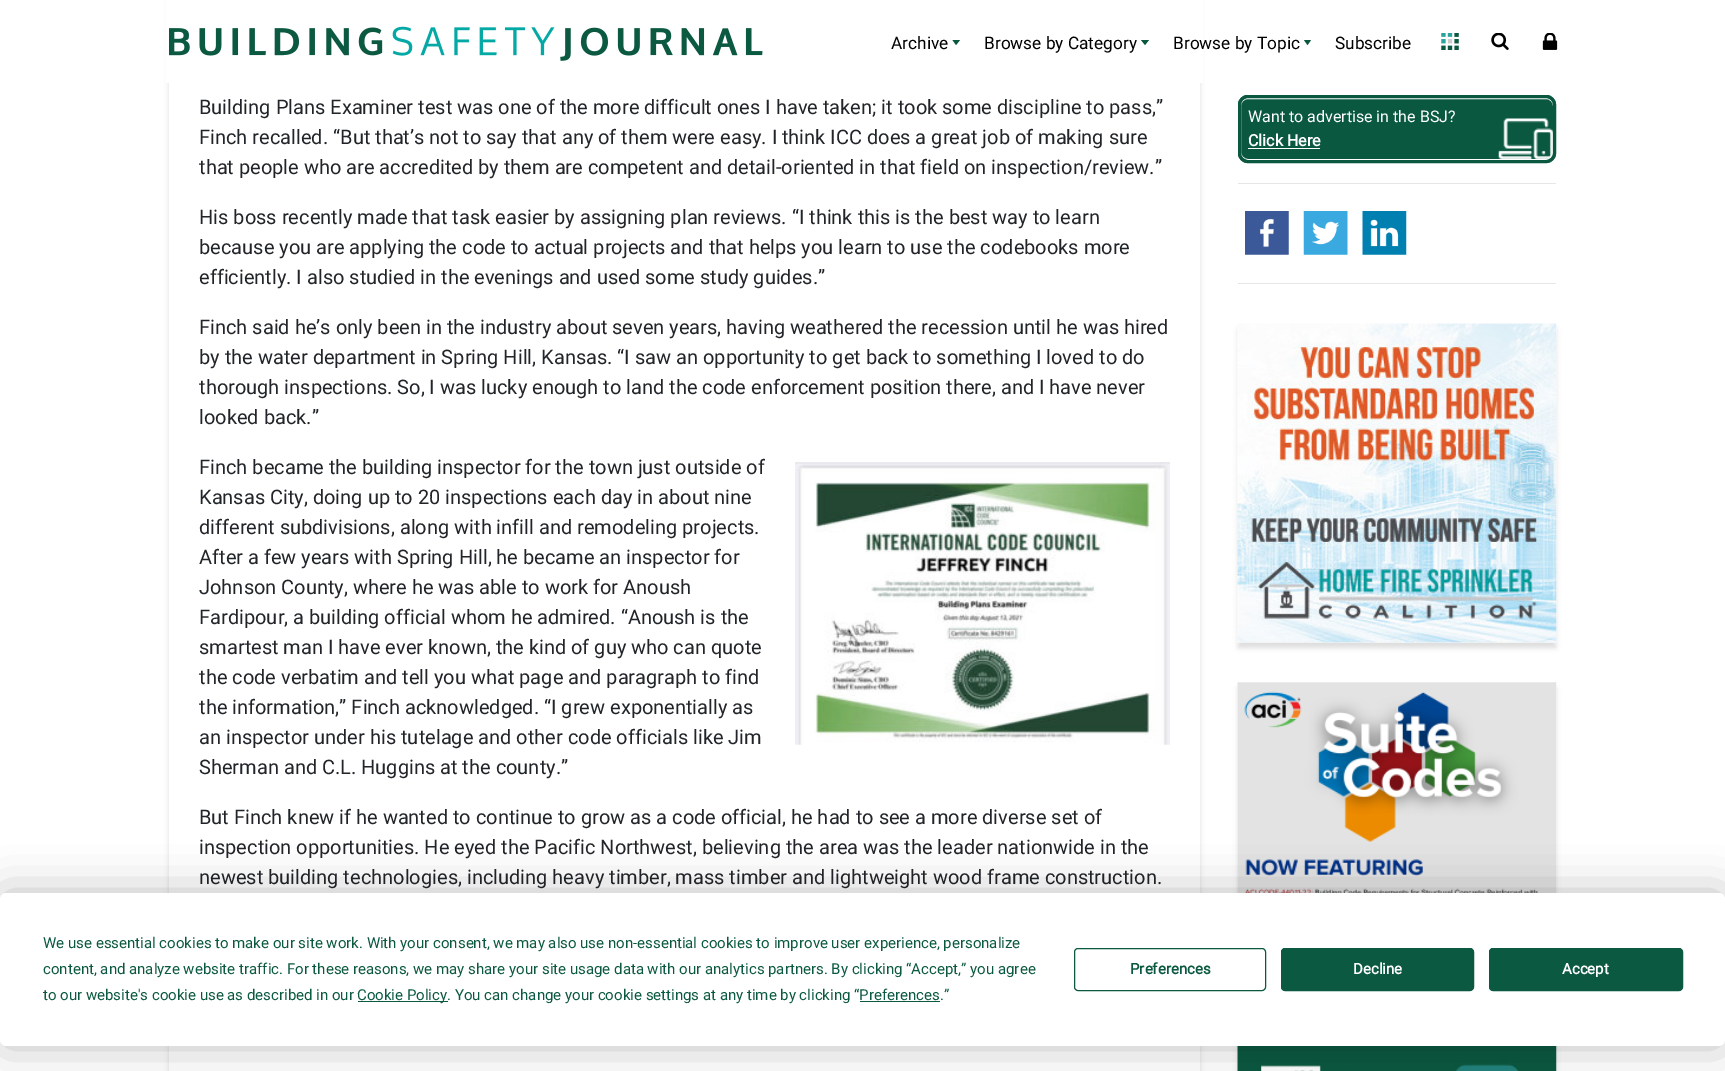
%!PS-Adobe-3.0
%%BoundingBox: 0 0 1725 1071
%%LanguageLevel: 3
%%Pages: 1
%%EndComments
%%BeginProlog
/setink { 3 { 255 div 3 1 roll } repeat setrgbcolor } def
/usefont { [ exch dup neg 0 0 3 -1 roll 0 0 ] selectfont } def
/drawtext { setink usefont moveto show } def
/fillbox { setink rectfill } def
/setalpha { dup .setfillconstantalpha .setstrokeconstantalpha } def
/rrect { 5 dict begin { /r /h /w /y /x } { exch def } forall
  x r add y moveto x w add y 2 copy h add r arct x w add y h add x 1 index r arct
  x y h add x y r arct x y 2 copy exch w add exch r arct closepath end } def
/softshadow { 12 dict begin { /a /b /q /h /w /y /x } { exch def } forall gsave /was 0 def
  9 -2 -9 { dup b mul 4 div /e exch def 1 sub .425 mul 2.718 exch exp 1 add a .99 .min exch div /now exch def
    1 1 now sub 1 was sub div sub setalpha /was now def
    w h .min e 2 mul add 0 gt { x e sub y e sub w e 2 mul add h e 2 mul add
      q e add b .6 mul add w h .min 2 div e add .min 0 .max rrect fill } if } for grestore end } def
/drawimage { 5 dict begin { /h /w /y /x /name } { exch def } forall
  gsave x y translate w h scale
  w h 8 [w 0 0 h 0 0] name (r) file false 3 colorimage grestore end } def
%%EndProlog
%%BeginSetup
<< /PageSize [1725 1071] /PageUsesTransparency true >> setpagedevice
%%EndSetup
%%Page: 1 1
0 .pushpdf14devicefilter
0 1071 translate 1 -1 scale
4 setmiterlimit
0 0 1725 1071 255 255 255 fillbox
gsave
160 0 moveto 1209 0 lineto 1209 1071 lineto 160 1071 lineto closepath 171.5 -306 moveto 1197.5 -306 lineto 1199 -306 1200 -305 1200 -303.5 curveto 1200 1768.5 lineto 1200 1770 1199 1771 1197.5 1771 curveto 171.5 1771 lineto 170 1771 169 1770 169 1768.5 curveto 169 -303.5 lineto 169 -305 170 -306 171.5 -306 curveto closepath eoclip newpath
0 0 0 setink
169 -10 1031 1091 2.5 2.5 0.12 softshadow
grestore
166 0 1037 83 255 255 255 fillbox
(assets/img1.rgb) 169 26 594 35 drawimage
(Archive) 891 49 /Roboto-Regular 17.25 0 0 0 drawtext
11 88 64 setink
952.5 40 moveto 960 40 lineto 956 45 lineto closepath fill
(Browse by Category) 984 49 /Roboto-Regular 17.25 0 0 0 drawtext
11 88 64 setink
1141 40 moveto 1149 40 lineto 1145 45 lineto closepath fill
(Browse by Topic) 1173 49 /Roboto-Regular 17.25 0 0 0 drawtext
11 88 64 setink
1304 40 moveto 1311 40 lineto 1307.5 45 lineto closepath fill
(Subscribe) 1335 49 /Roboto-Regular 17.25 0 0 0 drawtext
(assets/img2.rgb) 1441 33 18 17 drawimage
(assets/img3.rgb) 1491 33 18 17 drawimage
(assets/img4.rgb) 1542 33 16 17 drawimage
(Building Plans Examiner test was one of the more difficult ones I have taken; it took some discipline to pass,”) 199 114 /Roboto-Regular 20 33 37 41 drawtext
(Finch recalled. “But that’s not to say that any of them were easy. I think ICC does a great job of making sure) 199 144 /Roboto-Regular 20 33 37 41 drawtext
(that people who are accredited by them are competent and detail-oriented in that field on inspection/review.”) 199 174 /Roboto-Regular 20 33 37 41 drawtext
(His boss recently made that task easier by assigning plan reviews. “I think this is the best way to learn) 199 224 /Roboto-Regular 20 33 37 41 drawtext
(because you are applying the code to actual projects and that helps you learn to use the codebooks more) 199 254 /Roboto-Regular 20 33 37 41 drawtext
(efficiently. I also studied in the evenings and used some study guides.”) 199 284 /Roboto-Regular 20 33 37 41 drawtext
(Finch said he’s only been in the industry about seven years, having weathered the recession until he was hired) 199 334 /Roboto-Regular 20 33 37 41 drawtext
(by the water department in Spring Hill, Kansas. “I saw an opportunity to get back to something I loved to do) 199 364 /Roboto-Regular 20 33 37 41 drawtext
(thorough inspections. So, I was lucky enough to land the code enforcement position there, and I have never) 199 394 /Roboto-Regular 20 33 37 41 drawtext
(looked back.”) 199 424 /Roboto-Regular 20 33 37 41 drawtext
(Finch became the building inspector for the town just outside of) 199 474 /Roboto-Regular 20 33 37 41 drawtext
(assets/img5.rgb) 795 462 375 283 drawimage
(Kansas City, doing up to 20 inspections each day in about nine) 199 504 /Roboto-Regular 20 33 37 41 drawtext
(different subdivisions, along with infill and remodeling projects.) 199 534 /Roboto-Regular 20 33 37 41 drawtext
(After a few years with Spring Hill, he became an inspector for) 199 564 /Roboto-Regular 20 33 37 41 drawtext
(Johnson County, where he was able to work for Anoush) 199 594 /Roboto-Regular 20 33 37 41 drawtext
(Fardipour, a building official whom he admired. “Anoush is the) 199 624 /Roboto-Regular 20 33 37 41 drawtext
(smartest man I have ever known, the kind of guy who can quote) 199 654 /Roboto-Regular 20 33 37 41 drawtext
(the code verbatim and tell you what page and paragraph to find) 199 684 /Roboto-Regular 20 33 37 41 drawtext
(the information,” Finch acknowledged. “I grew exponentially as) 199 714 /Roboto-Regular 20 33 37 41 drawtext
(an inspector under his tutelage and other code officials like Jim) 199 744 /Roboto-Regular 20 33 37 41 drawtext
(Sherman and C.L. Huggins at the county.”) 199 774 /Roboto-Regular 20 33 37 41 drawtext
(But Finch knew if he wanted to continue to grow as a code official, he had to see a more diverse set of) 199 824 /Roboto-Regular 20 33 37 41 drawtext
(inspection opportunities. He eyed the Pacific Northwest, believing the area was the leader nationwide in the) 199 854 /Roboto-Regular 20 33 37 41 drawtext
(newest building technologies, including heavy timber, mass timber and lightweight wood frame construction.) 199 884 /Roboto-Regular 20 33 37 41 drawtext
10 88 64 setink
1238 95 318 68 10 rrect fill
(assets/img6.rgb) 1498 118 55 42 drawimage
255 255 255 setink
1240.5 98.5 313 61 7.5 rrect stroke
10 88 64 setink
3 setlinewidth
1239.5 96.5 315 65 8.5 rrect stroke
(Want to advertise in the BSJ?) 1248 122 /Roboto-Regular 16 255 255 255 drawtext
(Click Here) 1248 146 /Roboto-Bold 16 255 255 255 drawtext
1248 148 72 1 255 255 255 fillbox
1238 183 318 1 230 230 230 fillbox
(assets/img7.rgb) 1245 211 44 44 drawimage
(assets/img8.rgb) 1303 211 45 44 drawimage
(assets/img9.rgb) 1362 211 45 44 drawimage
1238 283 318 1 230 230 230 fillbox
0 0 0 setink
1238 329 318 319 0 2.5 0.12 softshadow
(assets/img10.rgb) 1237 323 320 320 drawimage
1238 688 318 318 0 2.5 0.12 softshadow
(assets/img11.rgb) 1237 682 320 211 drawimage
1238 1046 318 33 0 2.5 0.12 softshadow
(assets/img12.rgb) 1237 1046 320 25 drawimage
0 893 1725 153 6 22 0.25 softshadow
255 255 255 setink
0 893 1725 153 6 rrect fill
(We use essential cookies to make our site work. With your consent, we may also use non-essential cookies to improve user experience, personalize) 43 948 /Roboto-Regular 15 11 89 64 drawtext
(content, and analyze website traffic. For these reasons, we may share your site usage data with our analytics partners. By clicking “Accept,” you agree) 43 974 /Roboto-Regular 15 11 89 64 drawtext
(to our website's cookie use as described in our) 43 1000 /Roboto-Regular 15 11 89 64 drawtext
358 1001 90 1 11 89 64 fillbox
(Cookie Policy. You can change your cookie settings at any time by clicking “Preferences.”) 357 1000 /Roboto-Regular 15 11 89 64 drawtext
860 1001 80 1 11 89 64 fillbox
1 setlinewidth
1074.5 948.5 191 42 3.5 rrect stroke
(Preferences) 1130 974 /Roboto-Bold 15 11 89 64 drawtext
1281.5 948.5 192 42 3.5 rrect gsave fill grestore
stroke
(Decline) 1353 974 /Roboto-Bold 15 255 255 255 drawtext
11 89 64 setink
1489.5 948.5 193 42 3.5 rrect gsave fill grestore
stroke
(Accept) 1562 974 /Roboto-Bold 15 255 255 255 drawtext
.poppdf14devicefilter showpage
%%EOF
